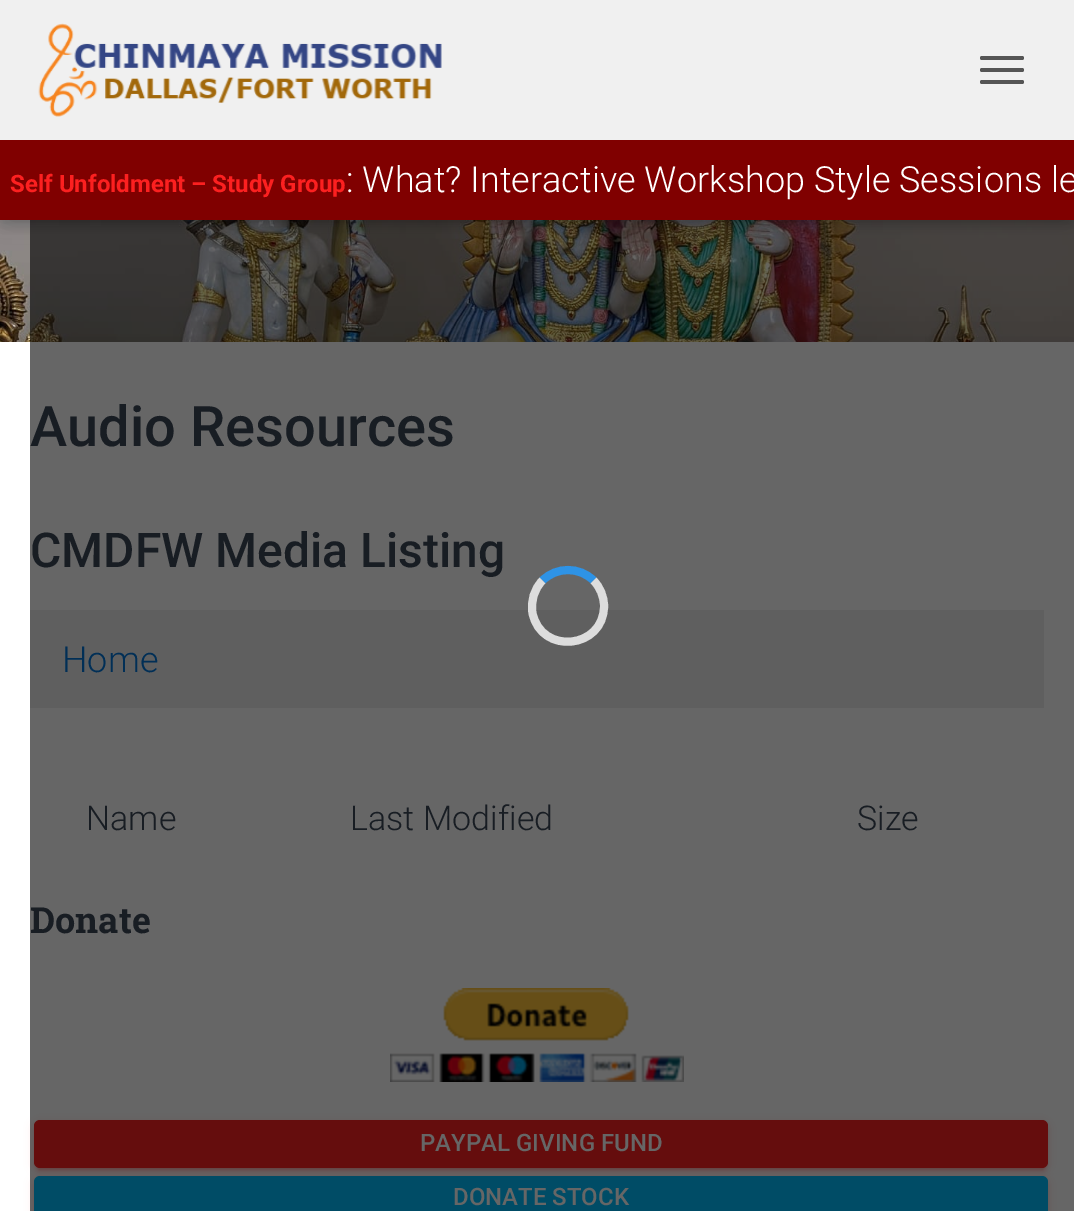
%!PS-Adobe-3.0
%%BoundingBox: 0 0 1074 1211
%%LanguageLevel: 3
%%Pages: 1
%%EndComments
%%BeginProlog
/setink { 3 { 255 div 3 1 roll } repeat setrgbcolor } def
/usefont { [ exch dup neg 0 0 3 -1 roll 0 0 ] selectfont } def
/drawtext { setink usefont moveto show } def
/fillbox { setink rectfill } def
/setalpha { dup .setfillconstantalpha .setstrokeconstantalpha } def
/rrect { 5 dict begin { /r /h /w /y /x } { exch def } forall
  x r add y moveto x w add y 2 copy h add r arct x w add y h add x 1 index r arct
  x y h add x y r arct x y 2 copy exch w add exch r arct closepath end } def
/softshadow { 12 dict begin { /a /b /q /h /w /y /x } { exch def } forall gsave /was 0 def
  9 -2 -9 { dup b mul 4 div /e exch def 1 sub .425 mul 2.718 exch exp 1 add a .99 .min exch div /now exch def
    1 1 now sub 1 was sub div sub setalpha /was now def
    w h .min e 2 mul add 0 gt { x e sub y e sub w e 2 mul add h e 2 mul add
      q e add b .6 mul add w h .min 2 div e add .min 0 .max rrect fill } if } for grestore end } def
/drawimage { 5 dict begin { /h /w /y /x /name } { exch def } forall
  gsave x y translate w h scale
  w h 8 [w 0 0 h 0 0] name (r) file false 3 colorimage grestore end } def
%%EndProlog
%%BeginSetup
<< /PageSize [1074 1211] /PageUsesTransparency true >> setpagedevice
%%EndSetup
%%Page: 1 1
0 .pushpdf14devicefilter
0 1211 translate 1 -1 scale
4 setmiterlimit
0 0 1074 1211 255 255 255 fillbox
(assets/img2.rgb) 0 220 1074 122 drawimage
0 0 0 setink
-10 344 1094 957 0 30 0.12 softshadow
0 342 1074 869 255 255 255 fillbox
(Audio Resources) 30 446 /Roboto-Medium 56 60 72 88 drawtext
(CMDFW Media Listing) 30 567 /Roboto-Medium 48 60 72 88 drawtext
30 610 1014 98 238 238 238 fillbox
(Home) 62 672 /Roboto-Light 36 2 117 216 drawtext
(Name) 86 830 /Roboto-Light 34 60 72 88 drawtext
(Last Modified) 350 830 /Roboto-Light 34 60 72 88 drawtext
(Size) 857 830 /Roboto-Light 34 60 72 88 drawtext
(Donate) 30 933 /RobotoSlab-Bold 36 60 72 88 drawtext
(assets/img3.rgb) 390 988 294 94 drawimage
252 32 32 setink
34 1122 1014 48 6 5 0.12 softshadow
38 1130 1006 40 2 1 0.2 softshadow
34 1124 1014 48 6 2 0.14 softshadow
34 1120 1014 48 6 rrect fill
(PAYPAL GIVING FUND) 420 1151 /Roboto-Medium 24 255 255 255 drawtext
252 32 32 setink
34 1178 1014 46 6 5 0.12 softshadow
34 1180 1014 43 6 2 0.14 softshadow
0 191 255 setink
34 1176 1014 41 6 rrect fill
(DONATE STOCK) 453 1205 /Roboto-Medium 24 255 255 255 drawtext
0.6 setalpha
30 220 1044 991 0 0 0 fillbox
1 setalpha
4 12 1066 212 0 5 0.1 softshadow
0 2 1074 220 0 10 0.12 softshadow
12 14 1050 196 0 10 0.42 softshadow
0 0 1074 140 240 240 240 fillbox
(assets/img1.rgb) 38 23 404 94 drawimage
85 85 85 setink
980 56 44 4 2 rrect fill
980 68 44 4 2 rrect fill
980 80 44 4 2 rrect fill
0 140 1074 80 128 0 0 fillbox
(Self Unfoldment – Study Group) 10 192 /Roboto-Bold 24 252 32 32 drawtext
(: What? Interactive Workshop Style Sessions le) 346 192 /Roboto-Light 36 255 255 255 drawtext
46 147 230 setink
8 setlinewidth
542.5 580.5 moveto 556.5 566.5 579.5 566.5 593.5 580.5 curveto stroke
221 221 221 setink
593.5 580.5 moveto 600 587 604 596.5 604 606 curveto 604 649 541 655.5 532.5 613 curveto 530.5 601.5 534 589 542.5 580.5 curveto stroke
.poppdf14devicefilter showpage
%%EOF
